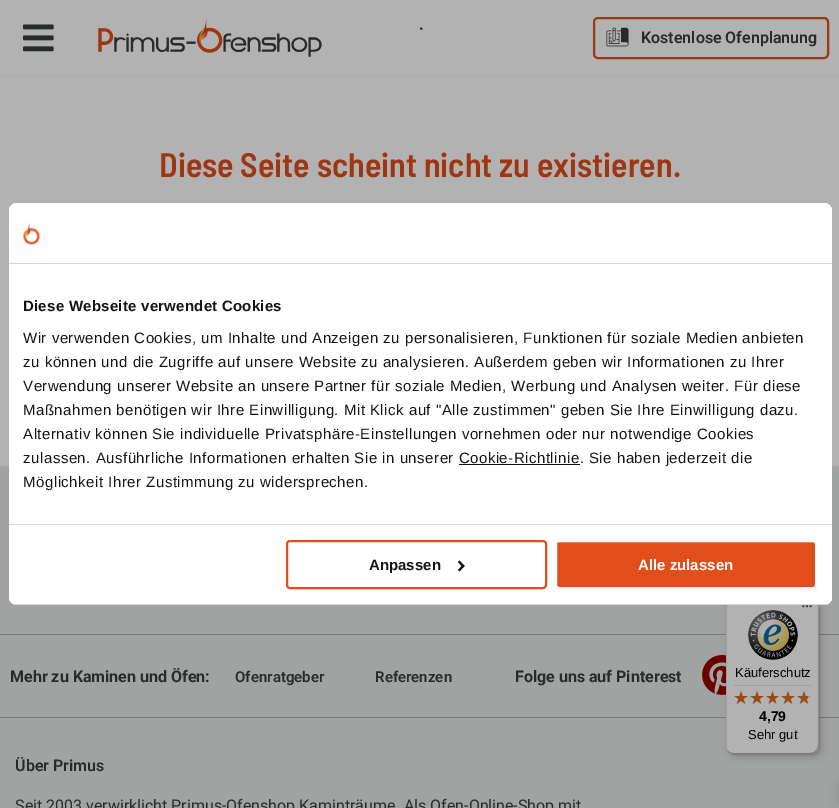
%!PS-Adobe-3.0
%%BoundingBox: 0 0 839 808
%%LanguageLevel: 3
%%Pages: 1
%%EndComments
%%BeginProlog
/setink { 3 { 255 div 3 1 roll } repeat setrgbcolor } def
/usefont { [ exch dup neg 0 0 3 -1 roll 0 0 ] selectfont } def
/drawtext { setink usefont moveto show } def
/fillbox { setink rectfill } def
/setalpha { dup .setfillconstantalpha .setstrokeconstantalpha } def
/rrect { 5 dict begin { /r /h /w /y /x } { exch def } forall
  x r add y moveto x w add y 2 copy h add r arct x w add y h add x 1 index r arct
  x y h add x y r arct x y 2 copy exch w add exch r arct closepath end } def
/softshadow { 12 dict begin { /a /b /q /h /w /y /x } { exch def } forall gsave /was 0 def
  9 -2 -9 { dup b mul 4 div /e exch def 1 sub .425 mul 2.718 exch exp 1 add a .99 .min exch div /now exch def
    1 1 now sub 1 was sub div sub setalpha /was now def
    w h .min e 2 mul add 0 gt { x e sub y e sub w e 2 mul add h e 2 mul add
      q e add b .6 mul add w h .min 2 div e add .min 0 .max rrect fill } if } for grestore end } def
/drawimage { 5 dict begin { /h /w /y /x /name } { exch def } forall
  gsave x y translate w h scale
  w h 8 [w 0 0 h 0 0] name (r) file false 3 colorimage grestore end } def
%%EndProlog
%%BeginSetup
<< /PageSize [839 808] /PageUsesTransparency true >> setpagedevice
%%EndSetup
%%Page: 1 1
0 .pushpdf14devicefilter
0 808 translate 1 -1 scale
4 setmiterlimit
0 0 839 808 255 255 255 fillbox
0 75 839 1 246 247 247 fillbox
(assets/img1.rgb) 23 24 31 28 drawimage
(assets/img2.rgb) 98 19 224 38 drawimage
57 61 63 setink
1.9 setlinewidth
1 setlinecap
421 28.5 moveto 421.5 28.5 lineto stroke
226 78 27 setink
2 setlinewidth
0 setlinecap
594 18 234 40 4 rrect stroke
(assets/img3.rgb) 606 27 23 20 drawimage
(Kostenlose Ofenplanung) 641 43 /Roboto-SemiBold 16 57 61 63 drawtext
(Diese Seite scheint nicht zu existieren.) 159 177 /BarlowSemiCondensed-SemiBold 34 226 78 27 drawtext
0 466 839 168 230 232 232 fillbox
0 635 839 82 230 232 232 fillbox
0 634 839 1 171 174 174 fillbox
0 717 839 1 171 174 174 fillbox
(Mehr zu Kaminen und Öfen:) 10 682 /Roboto-Bold 16 57 61 63 drawtext
(Ofenratgeber) 235 682 /Roboto-SemiBold 15 57 61 63 drawtext
(Referenzen) 375 682 /Roboto-SemiBold 15 57 61 63 drawtext
(Folge uns auf Pinterest) 515 682 /Roboto-Bold 16 57 61 63 drawtext
(assets/img4.rgb) 702 655 24 40 drawimage
0 718 839 90 230 232 232 fillbox
(Über Primus) 15 771 /Roboto-SemiBold 16 57 61 63 drawtext
(Seit 2003 verwirklicht Primus-Ofenshop Kaminträume. Als Ofen-Online-Shop mit) 15 811 /Roboto-Regular 16 57 61 63 drawtext
0 0 0 setink
729 602 93 155 8 4 0.15 softshadow
727 600 93 155 8 1 0.15 softshadow
255 255 255 setink
726 599 93 155 8 rrect fill
0.1 setalpha
0 0 0 setink
735 600 moveto 812 600 lineto 814 600 816 601 818 603 curveto 816 601 814 599 811 599 curveto 734 599 lineto 730 599 726 603 726 607 curveto 726 746 lineto 726 749 728 751 730 753 curveto 728 751 727 749 727 747 curveto 727 608 lineto 727 604 731 600 735 600 curveto closepath fill
0.2 setalpha
727 750 moveto 729 752 731 754 734 754 curveto 811 754 lineto 815 754 819 750 819 746 curveto 819 607 lineto 819 604 817 602 815 600 curveto 817 602 818 604 818 606 curveto 818 745 lineto 818 749 814 753 810 753 curveto 733 753 lineto 731 753 729 752 727 750 curveto closepath fill
50 50 50 setink
728 751 moveto 729 753 732 754 734 754 curveto 811 754 lineto 815 754 819 750 819 746 curveto 819 607 lineto 819 605 818 602 816 601 curveto 817 602 818 604 818 606 curveto 818 745 lineto 818 750 815 753 810 753 curveto 733 753 lineto 731 753 729 752 728 751 curveto closepath fill
0.3 setalpha
255 255 255 setink
810 754 moveto 811 754 lineto 815 754 819 750 819 746 curveto 819 607 lineto 819 605 818 602 816 601 curveto 817 602 818 604 818 606 curveto 818 746 lineto 818 750 815 754 810 754 curveto closepath fill
1 setalpha
(assets/img6.rgb) 802 605 10 3 drawimage
(assets/img7.rgb) 748 610 50 50 drawimage
(Käuferschutz) 735 677 /LiberationSans-Regular 13 0 0 0 drawtext
734 685 77 1 229 229 229 fillbox
(assets/img8.rgb) 734 691 14 13 drawimage
(assets/img8.rgb) 750 691 14 13 drawimage
(assets/img9.rgb) 766 691 13 13 drawimage
(assets/img8.rgb) 781 691 14 13 drawimage
(assets/img8.rgb) 797 691 14 13 drawimage
(assets/img10.rgb) 734 691 14 13 drawimage
(assets/img10.rgb) 750 691 14 13 drawimage
(assets/img11.rgb) 766 691 13 13 drawimage
(assets/img10.rgb) 781 691 14 13 drawimage
(assets/img12.rgb) 797 691 11 13 drawimage
(4,79) 759 721 /LiberationSans-Bold 14 0 0 0 drawtext
(Sehr gut) 748 739 /LiberationSans-Regular 13 0 0 0 drawtext
839 783 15 20 0 5 0.1 softshadow
0.3 setalpha
10000 setlinewidth
-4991 -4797 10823 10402 5008 rrect stroke
1 setalpha
255 255 255 setink
9 203 823 402 8 rrect fill
9 263 823 1 214 214 214 fillbox
(assets/img5.rgb) 23 222 18 23 drawimage
9 524 823 1 214 214 214 fillbox
/LiberationSans-Bold 15 usefont
20 20 20 setink
23 311 moveto 0.25 0 (Diese Webseite verwendet Cookies) ashow
/LiberationSans-Regular 15 usefont
23 343 moveto 0.5 0 (Wir verwenden Cookies, um Inhalte und Anzeigen zu personalisieren, Funktionen für soziale Medien anbieten) ashow
23 367 moveto 0.5 0 (zu können und die Zugriffe auf unsere Website zu analysieren. Außerdem geben wir Informationen zu Ihrer) ashow
23 391 moveto 0.5 0 (Verwendung unserer Website an unsere Partner für soziale Medien, Werbung und Analysen weiter. Für diese) ashow
23 415 moveto 0.5 0 (Maßnahmen benötigen wir Ihre Einwilligung. Mit Klick auf "Alle zustimmen" geben Sie Ihre Einwilligung dazu.) ashow
23 439 moveto 0.5 0 (Alternativ können Sie individuelle Privatsphäre-Einstellungen vornehmen oder nur notwendige Cookies) ashow
23 463 moveto 0.5 0 (zulassen. Ausführliche Informationen erhalten Sie in unserer Cookie-Richtlinie. Sie haben jederzeit die) ashow
459 464 121 1 20 20 20 fillbox
23 487 moveto 0.5 0 (Möglichkeit Ihrer Zustimmung zu widersprechen.) ashow
gsave
9 203 823 402 8 rrect clip newpath
9 604 823 1 214 214 214 fillbox
grestore
226 78 27 setink
2 setlinewidth
287 541 259 47 3 rrect stroke
(Anpassen) 369 570 /LiberationSans-Bold 15 20 20 20 drawtext
459.5 560.5 moveto 464.5 566 lineto 463 567.5 lineto 458 562 lineto closepath fill
463 564.5 moveto 464.5 566 lineto 459.5 571.5 lineto 458 570 lineto closepath fill
226 78 27 setink
556 541 260 47 3 rrect gsave fill grestore
255 255 255 setink
stroke
(Alle zulassen) 638 570 /LiberationSans-Bold 15 255 255 255 drawtext
.poppdf14devicefilter showpage
%%EOF
